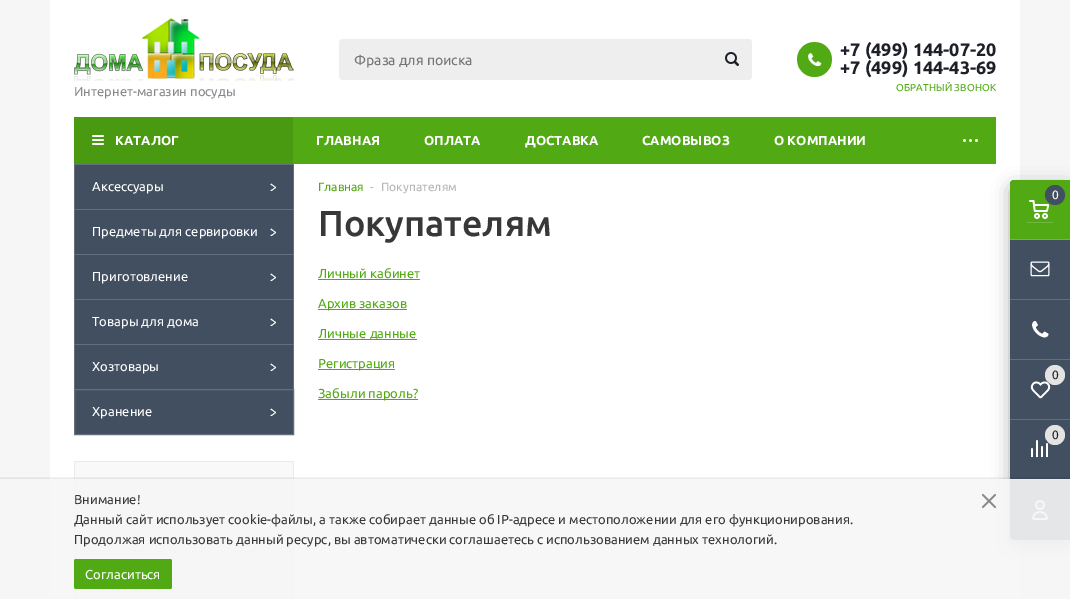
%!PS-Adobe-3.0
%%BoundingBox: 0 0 1070 599
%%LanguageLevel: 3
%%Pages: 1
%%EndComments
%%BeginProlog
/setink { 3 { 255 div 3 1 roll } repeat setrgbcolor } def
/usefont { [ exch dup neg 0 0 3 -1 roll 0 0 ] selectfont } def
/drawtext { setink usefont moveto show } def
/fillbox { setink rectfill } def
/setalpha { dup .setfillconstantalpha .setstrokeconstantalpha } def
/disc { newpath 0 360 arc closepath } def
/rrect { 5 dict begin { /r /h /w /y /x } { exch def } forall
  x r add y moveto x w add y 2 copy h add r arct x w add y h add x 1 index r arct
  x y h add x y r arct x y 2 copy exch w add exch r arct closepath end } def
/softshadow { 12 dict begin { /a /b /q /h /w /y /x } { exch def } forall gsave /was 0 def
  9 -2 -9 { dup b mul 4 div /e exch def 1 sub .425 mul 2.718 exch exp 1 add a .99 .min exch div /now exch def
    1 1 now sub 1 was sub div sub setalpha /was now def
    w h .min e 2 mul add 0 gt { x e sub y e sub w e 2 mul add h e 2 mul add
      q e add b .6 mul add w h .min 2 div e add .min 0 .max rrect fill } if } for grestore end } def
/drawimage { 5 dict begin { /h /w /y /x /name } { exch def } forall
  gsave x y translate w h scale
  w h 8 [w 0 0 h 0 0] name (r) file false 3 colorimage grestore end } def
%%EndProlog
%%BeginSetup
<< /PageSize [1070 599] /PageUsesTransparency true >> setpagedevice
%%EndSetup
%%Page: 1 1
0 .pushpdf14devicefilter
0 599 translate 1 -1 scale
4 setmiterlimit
0 0 1070 599 246 246 247 fillbox
50 0 970 599 255 255 255 fillbox
238 238 238 setink
339 39 413 41 4 rrect fill
(Фраза для поиска) 354 65 /Ubuntu-Regular 14 117 117 117 drawtext
(assets/img1.rgb) 725 52 14 15 drawimage
(assets/img2.rgb) 797 42 35 35 drawimage
(+7 \(499\) 144-07-20) 840 56 /Ubuntu-Bold 18 29 32 41 drawtext
(+7 \(499\) 144-43-69) 840 74 /Ubuntu-Bold 18 29 32 41 drawtext
/Ubuntu-Regular 10 usefont
81 170 19 setink
896 91 moveto 0.1 0 (ОБРАТНЫЙ ЗВОНОК) ashow
(assets/img3.rgb) 74 18 220 63 drawimage
(Интернет-магазин посуды) 74 96 /Ubuntu-Regular 13 136 136 136 drawtext
294 117 702 47 81 170 19 fillbox
(ГЛАВНАЯ) 316 145 /Ubuntu-Bold 13 255 255 255 drawtext
(ОПЛАТА) 424 145 /Ubuntu-Bold 13 255 255 255 drawtext
(ДОСТАВКА) 525 145 /Ubuntu-Bold 13 255 255 255 drawtext
(САМОВЫВОЗ) 642 145 /Ubuntu-Bold 13 255 255 255 drawtext
(О КОМПАНИИ) 774 145 /Ubuntu-Bold 13 255 255 255 drawtext
(assets/img4.rgb) 963 139 15 3 drawimage
74 117 219 47 73 154 17 fillbox
(assets/img5.rgb) 92 135 12 10 drawimage
(КАТАЛОГ) 115 145 /Ubuntu-Bold 13 255 255 255 drawtext
293 117 1 47 91 164 41 fillbox
74 164 220 225 66 79 96 fillbox
99 111 125 setink
74 164 moveto 294 164 lineto 293 165 lineto 75 165 lineto closepath fill
0.2 setalpha
231 237 242 setink
294 164 moveto 294 209 lineto 293 209 lineto 293 165 lineto closepath fill
74 209 moveto 74 164 lineto 75 165 lineto 75 209 lineto closepath fill
1 setalpha
(Аксессуары) 92 191 /Ubuntu-Regular 13 255 255 255 drawtext
(assets/img6.rgb) 270 183 6 8 drawimage
99 111 125 setink
74 209 moveto 294 209 lineto 293 210 lineto 75 210 lineto closepath fill
0.2 setalpha
231 237 242 setink
294 209 moveto 294 254 lineto 293 254 lineto 293 210 lineto closepath fill
74 254 moveto 74 209 lineto 75 210 lineto 75 254 lineto closepath fill
1 setalpha
(Предметы для сервировки) 92 236 /Ubuntu-Regular 13 255 255 255 drawtext
(assets/img6.rgb) 270 228 6 8 drawimage
99 111 125 setink
74 254 moveto 294 254 lineto 293 255 lineto 75 255 lineto closepath fill
0.2 setalpha
231 237 242 setink
294 254 moveto 294 299 lineto 293 299 lineto 293 255 lineto closepath fill
74 299 moveto 74 254 lineto 75 255 lineto 75 299 lineto closepath fill
1 setalpha
(Приготовление) 92 281 /Ubuntu-Regular 13 255 255 255 drawtext
(assets/img6.rgb) 270 273 6 8 drawimage
99 111 125 setink
74 299 moveto 294 299 lineto 293 300 lineto 75 300 lineto closepath fill
0.2 setalpha
231 237 242 setink
294 299 moveto 294 344 lineto 293 344 lineto 293 300 lineto closepath fill
74 344 moveto 74 299 lineto 75 300 lineto 75 344 lineto closepath fill
1 setalpha
(Товары для дома) 92 326 /Ubuntu-Regular 13 255 255 255 drawtext
(assets/img6.rgb) 270 318 6 8 drawimage
99 111 125 setink
74 344 moveto 294 344 lineto 293 345 lineto 75 345 lineto closepath fill
0.2 setalpha
231 237 242 setink
294 344 moveto 294 389 lineto 293 389 lineto 293 345 lineto closepath fill
74 389 moveto 74 344 lineto 75 345 lineto 75 389 lineto closepath fill
1 setalpha
(Хозтовары) 92 371 /Ubuntu-Regular 13 255 255 255 drawtext
(assets/img6.rgb) 270 363 6 8 drawimage
66 79 96 setink
74.5 389.5 moveto 293.5 389.5 lineto 293.5 434.5 lineto 74.5 434.5 lineto closepath gsave fill grestore
99 111 125 setink
stroke
(Хранение) 92 416 /Ubuntu-Regular 13 255 255 255 drawtext
(assets/img6.rgb) 270 408 6 8 drawimage
75 462 218 44 249 249 249 fillbox
74 461 220 1 234 235 236 fillbox
293 461 1 45 234 235 236 fillbox
74 461 1 45 234 235 236 fillbox
249 249 249 setink
74.5 506.5 moveto 293.5 506.5 lineto 293.5 551.5 lineto 74.5 551.5 lineto closepath gsave fill grestore
234 235 236 setink
stroke
75 552 218 44 249 249 249 fillbox
293 552 1 47 234 235 236 fillbox
74 596 220 1 234 235 236 fillbox
74 552 1 47 234 235 236 fillbox
75 597 218 2 249 249 249 fillbox
(Главная) 318 191 /Ubuntu-Regular 12 81 170 19 drawtext
(-) 370 191 /Ubuntu-Regular 12 182 181 181 drawtext
(Покупателям) 381 191 /Ubuntu-Regular 12 182 181 181 drawtext
(Покупателям) 318 236 /Ubuntu-Medium 36 56 56 56 drawtext
(Личный кабинет) 318 278 /Ubuntu-Regular 13 81 170 19 drawtext
318 279 102 1 81 170 19 fillbox
318 309 89 1 81 170 19 fillbox
(Архив заказов) 318 308 /Ubuntu-Regular 13 81 170 19 drawtext
318 339 99 1 81 170 19 fillbox
(Личные данные) 318 338 /Ubuntu-Regular 13 81 170 19 drawtext
318 369 77 1 81 170 19 fillbox
(Регистрация) 318 368 /Ubuntu-Regular 13 81 170 19 drawtext
318 399 100 1 81 170 19 fillbox
(Забыли пароль?) 318 398 /Ubuntu-Regular 13 81 170 19 drawtext
44 44 44 setink
1010 186 60 360 4 9 0.4 softshadow
66 79 96 setink
1014 180 moveto 1070 180 lineto 1070 540 lineto 1014 540 lineto 1012 540 1010 538 1010 536 curveto 1010 184 lineto 1010 182 1012 180 1014 180 curveto closepath fill
81 170 19 setink
1014 180 moveto 1070 180 lineto 1070 240 lineto 1010 240 lineto 1010 184 lineto 1010 182 1012 180 1014 180 curveto closepath fill
1010 239 60 1 111 183 64 fillbox
66 79 96 setink
1055 195 10 disc fill
(0) 1052 199 /Ubuntu-Regular 12 255 255 255 drawtext
(assets/img7.rgb) 1029 200 20 19 drawimage
1027 222 26 1 111 183 64 fillbox
1010 299 60 1 99 111 125 fillbox
(assets/img8.rgb) 1030 261 20 16 drawimage
1010 359 60 1 99 111 125 fillbox
(assets/img9.rgb) 1032 321 17 17 drawimage
1010 419 60 1 99 111 125 fillbox
227 227 227 setink
1055 375 10 disc fill
(0) 1052 379 /Ubuntu-Regular 12 33 33 33 drawtext
(assets/img10.rgb) 1030 381 21 18 drawimage
1010 479 60 1 99 111 125 fillbox
227 227 227 setink
1055 435 10 disc fill
(0) 1052 439 /Ubuntu-Regular 12 33 33 33 drawtext
(assets/img11.rgb) 1031 440 17 17 drawimage
(assets/img12.rgb) 1032 500 16 20 drawimage
gsave
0 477 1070 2 rectclip
0 0 0 setink
0 481 1070 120 0 2.5 0.5 softshadow
grestore
0.9 setalpha
50 479 1020 120 246 246 247 fillbox
1 setalpha
(Внимание!) 74 504 /Ubuntu-Regular 13 56 56 56 drawtext
(Данный сайт использует cookie-файлы, а также собирает данные об IP-адресе и местоположении для его функционирования.) 74 524 /Ubuntu-Regular 13 56 56 56 drawtext
(Продолжая использовать данный ресурс, вы автоматически соглашаетесь с использованием данных технологий.) 74 544 /Ubuntu-Regular 13 56 56 56 drawtext
(assets/img13.rgb) 982 494 14 14 drawimage
81 170 19 setink
74 559 98 30 2 rrect fill
(Согласиться) 85 579 /Ubuntu-Regular 13 255 255 255 drawtext
.poppdf14devicefilter showpage
%%EOF
